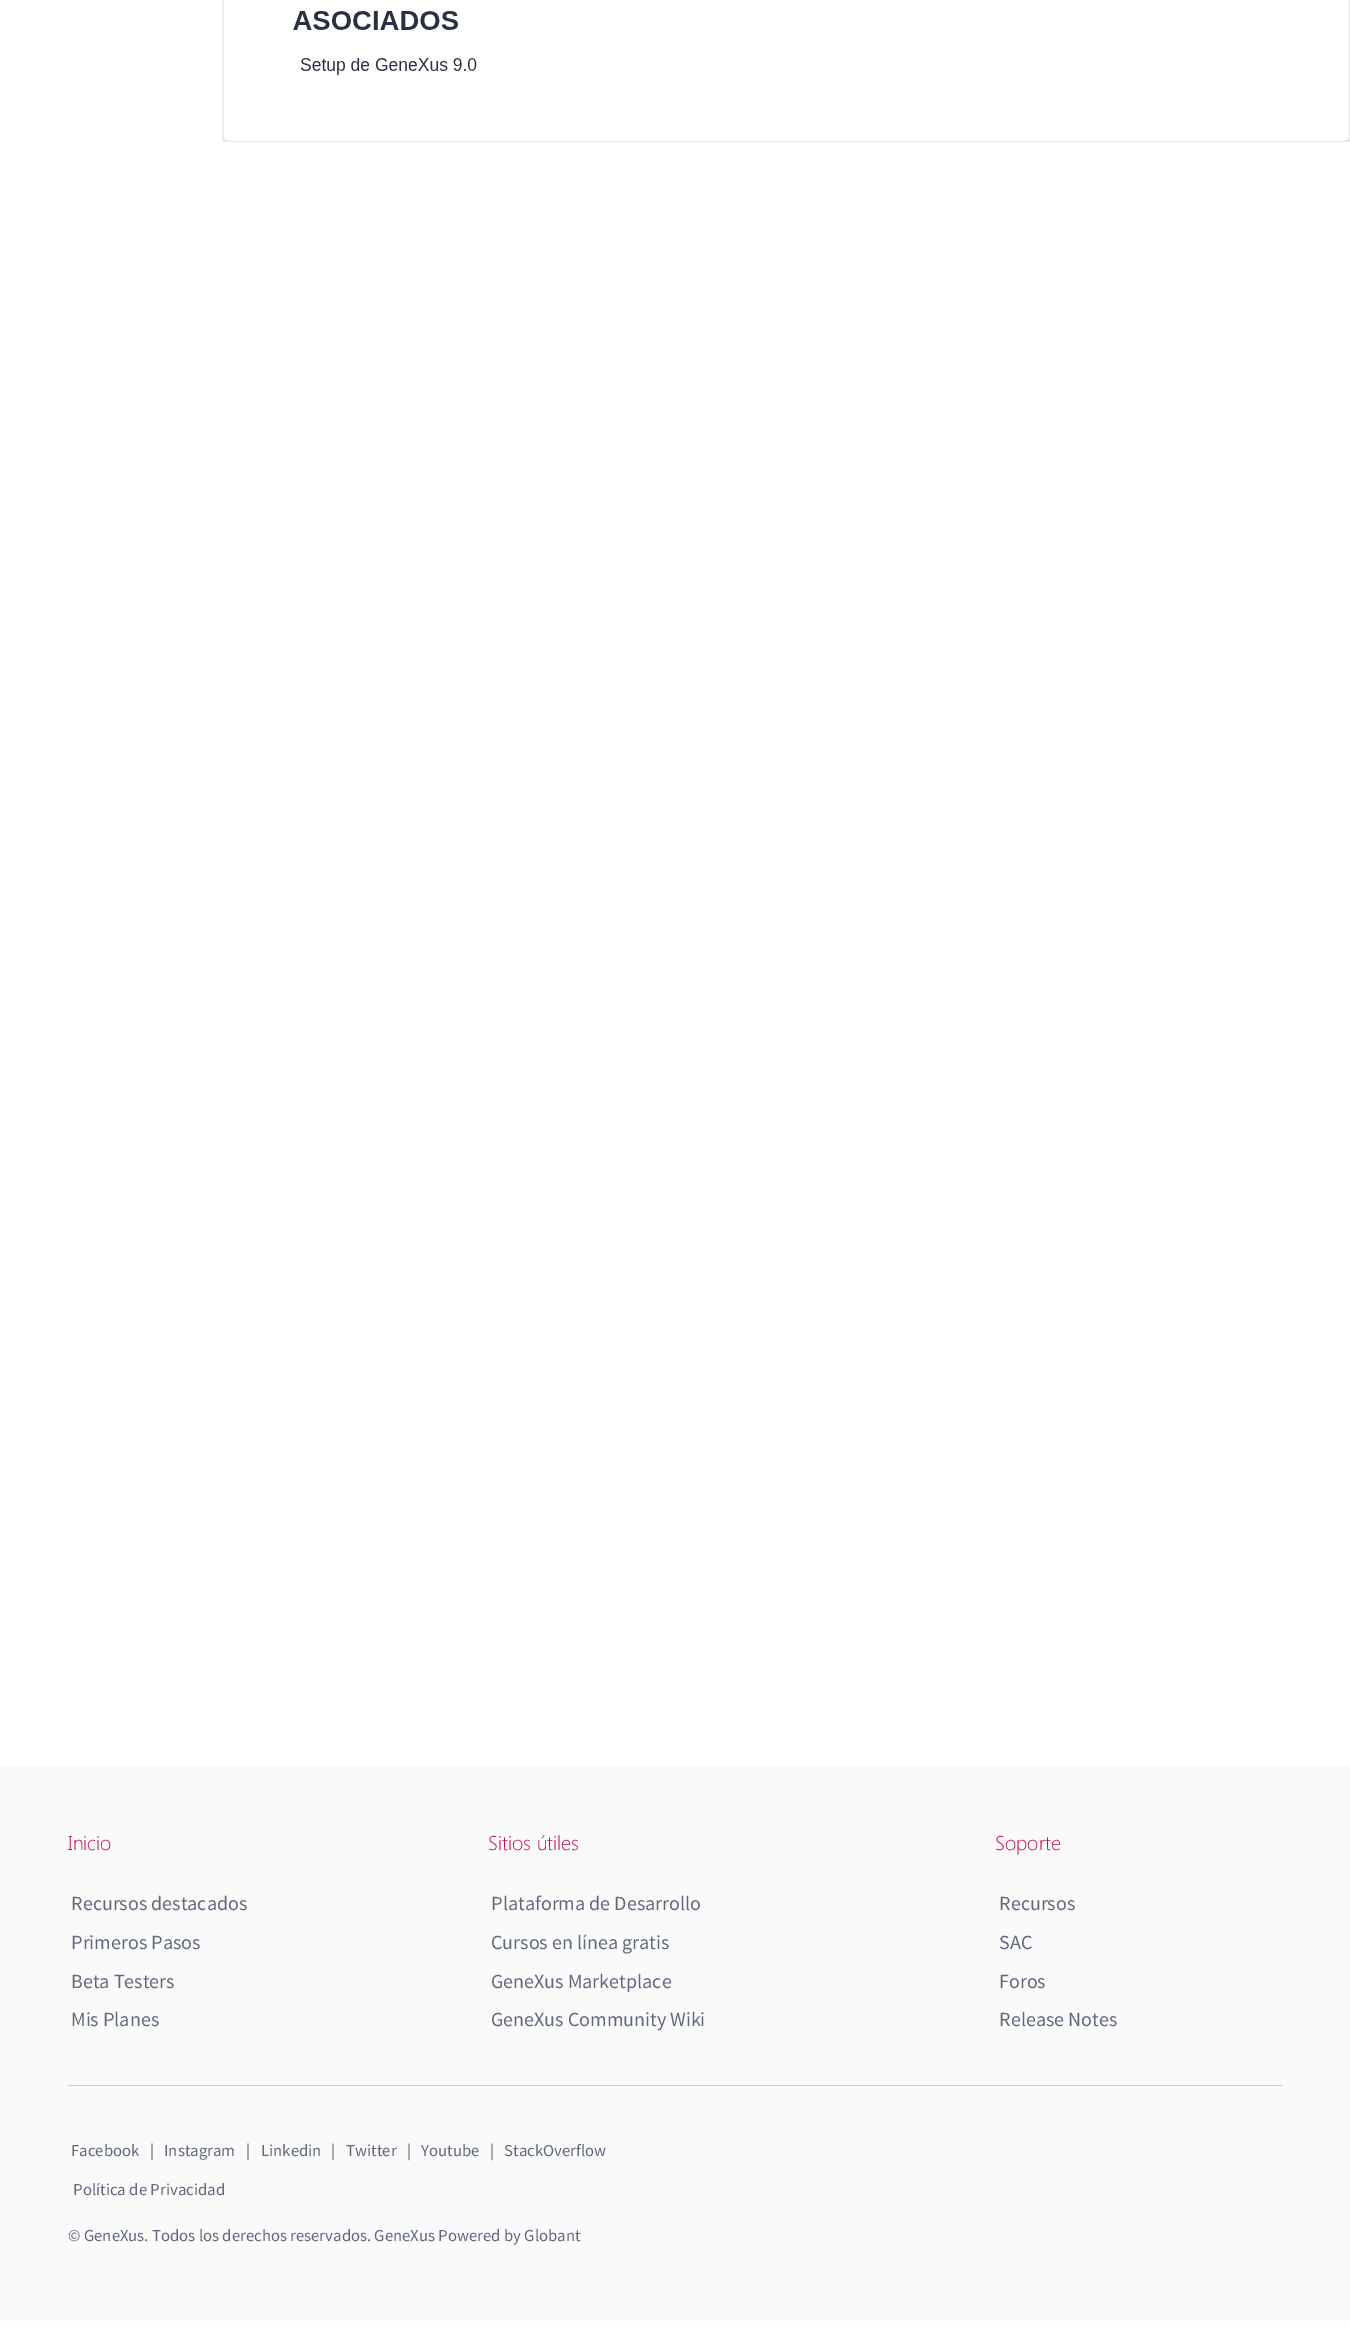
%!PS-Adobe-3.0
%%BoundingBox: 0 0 1350 2348
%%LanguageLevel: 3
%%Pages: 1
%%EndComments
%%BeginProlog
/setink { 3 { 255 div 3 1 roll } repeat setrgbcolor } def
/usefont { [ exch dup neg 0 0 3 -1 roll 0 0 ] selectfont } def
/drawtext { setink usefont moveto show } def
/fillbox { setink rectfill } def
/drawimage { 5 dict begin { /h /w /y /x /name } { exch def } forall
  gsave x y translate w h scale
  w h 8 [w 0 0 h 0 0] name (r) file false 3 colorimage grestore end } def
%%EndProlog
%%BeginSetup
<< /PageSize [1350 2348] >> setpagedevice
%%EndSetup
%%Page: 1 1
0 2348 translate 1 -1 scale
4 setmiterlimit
0 0 1350 2348 255 255 255 fillbox
(assets/img1.rgb) 222 0 1128 142 drawimage
0 1766 1350 555 250 250 250 fillbox
(Inicio) 68 1850 /SegoeUI-Light 20 198 12 70 drawtext
(Recursos destacados) 71 1910 /SourceSansPro-Regular 20 95 106 125 drawtext
(Primeros Pasos) 71 1949 /SourceSansPro-Regular 20 95 106 125 drawtext
(Beta Testers) 71 1988 /SourceSansPro-Regular 20 95 106 125 drawtext
(Mis Planes) 71 2026 /SourceSansPro-Regular 20 95 106 125 drawtext
(Sitios útiles) 488 1850 /SegoeUI-Light 20 198 12 70 drawtext
(Plataforma de Desarrollo) 491 1910 /SourceSansPro-Regular 20 95 106 125 drawtext
(Cursos en línea gratis) 491 1949 /SourceSansPro-Regular 20 95 106 125 drawtext
(GeneXus Marketplace) 491 1988 /SourceSansPro-Regular 20 95 106 125 drawtext
(GeneXus Community Wiki) 491 2026 /SourceSansPro-Regular 20 95 106 125 drawtext
(Soporte) 995 1850 /SegoeUI-Light 20 198 12 70 drawtext
(Recursos) 999 1910 /SourceSansPro-Regular 20 95 106 125 drawtext
(SAC) 999 1949 /SourceSansPro-Regular 20 95 106 125 drawtext
(Foros) 999 1988 /SourceSansPro-Regular 20 95 106 125 drawtext
(Release Notes) 999 2026 /SourceSansPro-Regular 20 95 106 125 drawtext
68 2085 1215 1 205 205 205 fillbox
(Facebook) 71 2156 /SourceSansPro-Regular 16.7 95 106 125 drawtext
(|) 150 2156 /SourceSansPro-Regular 16.7 95 106 125 drawtext
(Instagram) 164 2156 /SourceSansPro-Regular 16.7 95 106 125 drawtext
(|) 246 2156 /SourceSansPro-Regular 16.7 95 106 125 drawtext
(Linkedin) 261 2156 /SourceSansPro-Regular 16.7 95 106 125 drawtext
(|) 331 2156 /SourceSansPro-Regular 16.7 95 106 125 drawtext
(Twitter) 346 2156 /SourceSansPro-Regular 16.7 95 106 125 drawtext
(|) 407 2156 /SourceSansPro-Regular 16.7 95 106 125 drawtext
(Youtube) 421 2156 /SourceSansPro-Regular 16.7 95 106 125 drawtext
(|) 490 2156 /SourceSansPro-Regular 16.7 95 106 125 drawtext
(StackOverflow) 504 2156 /SourceSansPro-Regular 16.7 95 106 125 drawtext
(Política de Privacidad) 73 2195 /SourceSansPro-Regular 16.7 95 106 125 drawtext
(© GeneXus. Todos los derechos reservados. GeneXus Powered by Globant) 68 2241 /SourceSansPro-Regular 16.7 95 106 125 drawtext
showpage
%%EOF
